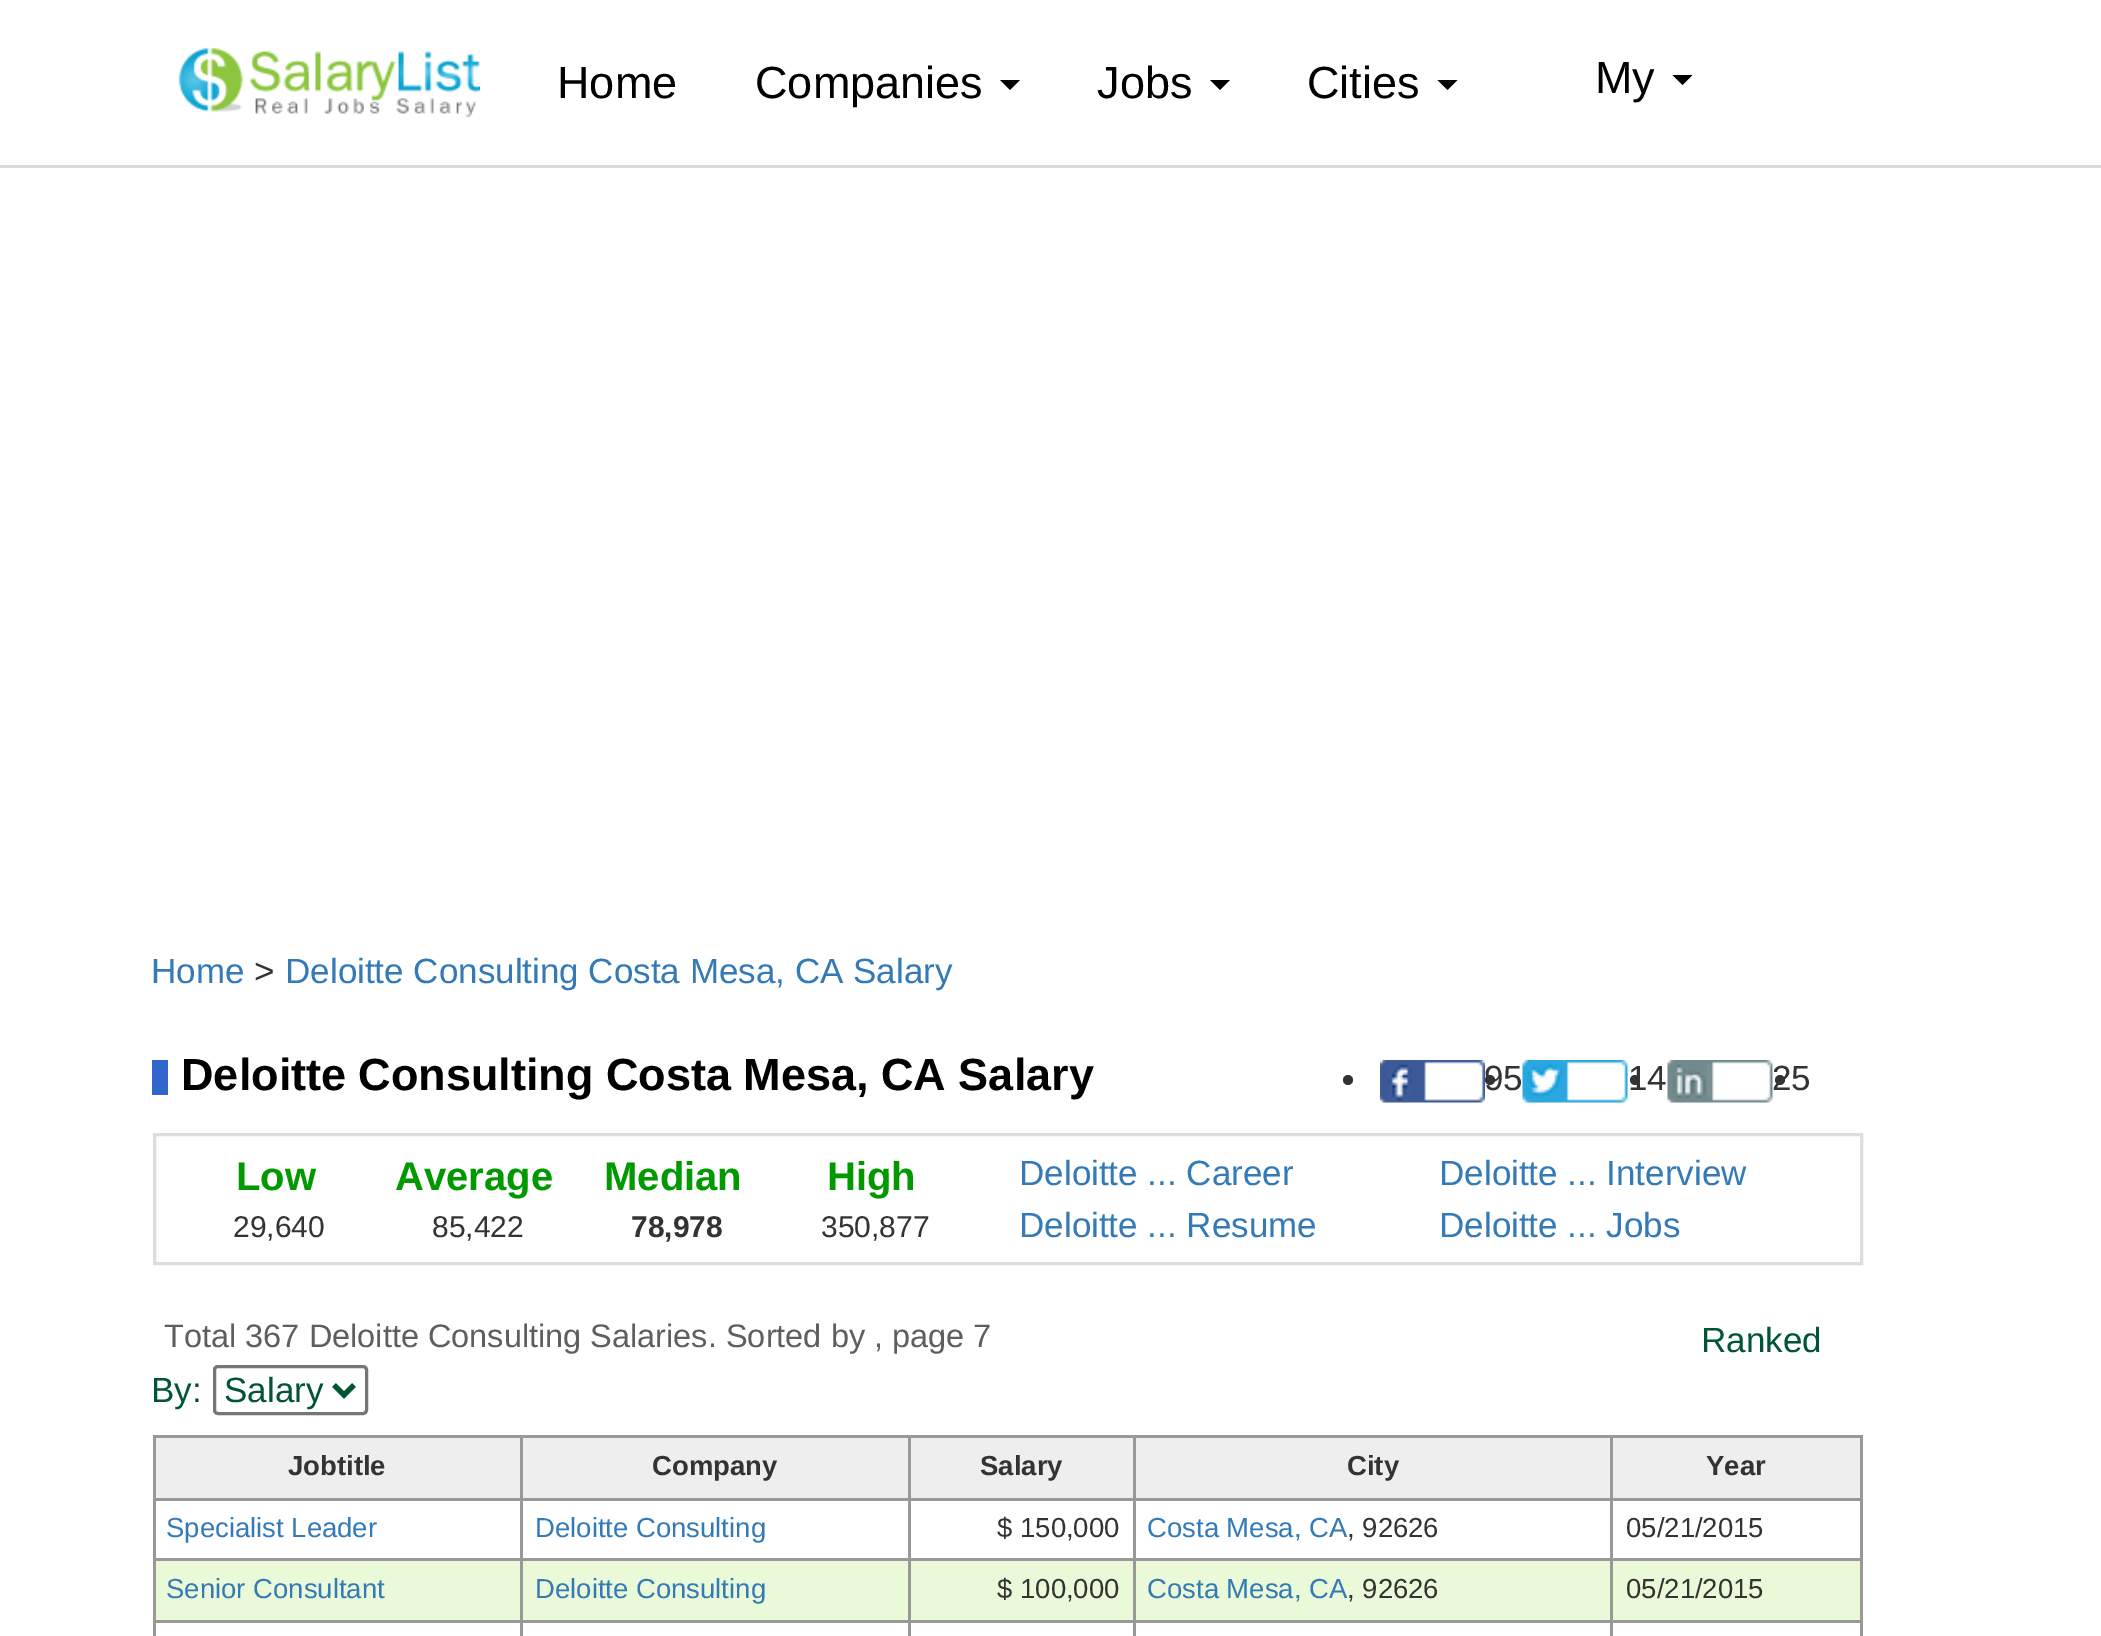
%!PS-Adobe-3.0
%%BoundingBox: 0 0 2101 1636
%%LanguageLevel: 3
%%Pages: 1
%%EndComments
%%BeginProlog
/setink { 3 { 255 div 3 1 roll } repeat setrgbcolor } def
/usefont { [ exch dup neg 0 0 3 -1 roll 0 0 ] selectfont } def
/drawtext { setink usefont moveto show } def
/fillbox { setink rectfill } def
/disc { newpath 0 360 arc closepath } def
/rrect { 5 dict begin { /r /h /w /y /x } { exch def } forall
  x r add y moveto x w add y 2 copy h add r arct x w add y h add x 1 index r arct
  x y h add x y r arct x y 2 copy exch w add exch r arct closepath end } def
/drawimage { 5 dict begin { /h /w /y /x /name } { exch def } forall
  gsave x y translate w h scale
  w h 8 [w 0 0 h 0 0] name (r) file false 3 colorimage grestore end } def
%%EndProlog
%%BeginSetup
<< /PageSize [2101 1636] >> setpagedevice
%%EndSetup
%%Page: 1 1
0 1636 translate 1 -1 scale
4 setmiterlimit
0 0 2101 1636 255 255 255 fillbox
0 165 2101 3 218 218 218 fillbox
(assets/img1.rgb) 178 48 302 70 drawimage
(Home) 557 98 /LiberationSans-Regular 45 0 0 0 drawtext
(Companies) 755 98 /LiberationSans-Regular 45 0 0 0 drawtext
1000 80 moveto 1020 80 lineto 1010 90 lineto closepath fill
(Jobs) 1097 98 /LiberationSans-Regular 45 0 0 0 drawtext
1210 80 moveto 1230 80 lineto 1220 90 lineto closepath fill
(Cities) 1307 98 /LiberationSans-Regular 45 0 0 0 drawtext
1437.5 80 moveto 1457.5 80 lineto 1447.5 90 lineto closepath fill
(My) 1595 93 /LiberationSans-Regular 45 0 0 0 drawtext
1672.5 75 moveto 1692.5 75 lineto 1682.5 85 lineto closepath fill
(Home) 151 983 /LiberationSans-Regular 35 51 122 183 drawtext
(>) 254 983 /LiberationSans-Regular 35 51 51 51 drawtext
(Deloitte Consulting Costa Mesa, CA Salary) 285 983 /LiberationSans-Regular 35 51 122 183 drawtext
152 1060 16 35 51 102 204 fillbox
(Deloitte Consulting Costa Mesa, CA Salary) 181 1090 /LiberationSans-Bold 45 0 0 0 drawtext
51 51 51 setink
1348 1080 5 disc fill
(assets/img2.rgb) 1380 1060 105 43 drawimage
(95) 1484 1090 /LiberationSans-Regular 35 51 51 51 drawtext
1490 1080 5 disc fill
(assets/img3.rgb) 1522 1060 106 43 drawimage
(14) 1628 1090 /LiberationSans-Regular 35 51 51 51 drawtext
1635 1080 5 disc fill
(assets/img4.rgb) 1667 1060 106 43 drawimage
(25) 1772 1090 /LiberationSans-Regular 35 51 51 51 drawtext
1780 1080 5 disc fill
221 221 221 setink
3 setlinewidth
154.5 1134.5 1707 129 rectstroke
(Low) 236 1190 /LiberationSans-Bold 40 0 153 0 drawtext
(29,640) 233 1237 /LiberationSans-Regular 30 51 51 51 drawtext
(Average) 395 1190 /LiberationSans-Bold 40 0 153 0 drawtext
(85,422) 432 1237 /LiberationSans-Regular 30 51 51 51 drawtext
(Median) 604 1190 /LiberationSans-Bold 40 0 153 0 drawtext
(78,978) 631 1237 /LiberationSans-Bold 30 51 51 51 drawtext
(High) 827 1190 /LiberationSans-Bold 40 0 153 0 drawtext
(350,877) 821 1237 /LiberationSans-Regular 30 51 51 51 drawtext
(Deloitte ... Career) 1019 1185 /LiberationSans-Regular 35 51 122 183 drawtext
(Deloitte ... Interview) 1439 1185 /LiberationSans-Regular 35 51 122 183 drawtext
(Deloitte ... Resume) 1019 1237 /LiberationSans-Regular 35 51 122 183 drawtext
(Deloitte ... Jobs) 1439 1237 /LiberationSans-Regular 35 51 122 183 drawtext
(Total 367 Deloitte Consulting Salaries. Sorted by , page 7) 164 1347 /LiberationSans-Regular 32.5 94 94 94 drawtext
(Ranked) 1701 1352 /LiberationSans-Regular 35 0 86 50 drawtext
(By:) 151 1402 /LiberationSans-Regular 35 0 86 50 drawtext
118 118 118 setink
214.5 1366.5 152 47 3.5 rrect stroke
0 86 50 setink
5 setlinewidth
334 1385 moveto 344 1395 lineto 354 1385 lineto stroke
(Salary) 224 1402 /LiberationSans-Regular 35 0 86 50 drawtext
153 1435 1710 3 153 153 153 fillbox
153 1435 3 201 153 153 153 fillbox
520 1620 3 16 153 153 153 fillbox
908 1620 3 16 153 153 153 fillbox
1133 1620 3 16 153 153 153 fillbox
1610 1620 3 16 153 153 153 fillbox
1860 1435 3 201 153 153 153 fillbox
156 1438 1704 60 238 238 238 fillbox
156 1561 1704 59 234 249 215 fillbox
1610 1620 253 3 153 153 153 fillbox
1610 1558 3 65 153 153 153 fillbox
1610 1558 253 3 153 153 153 fillbox
1610 1498 3 62 153 153 153 fillbox
1610 1498 253 3 153 153 153 fillbox
1610 1435 3 65 153 153 153 fillbox
1133 1620 480 3 153 153 153 fillbox
1133 1558 3 65 153 153 153 fillbox
1133 1558 480 3 153 153 153 fillbox
1133 1498 3 62 153 153 153 fillbox
1133 1498 480 3 153 153 153 fillbox
1133 1435 3 65 153 153 153 fillbox
908 1620 227 3 153 153 153 fillbox
908 1558 3 65 153 153 153 fillbox
908 1558 227 3 153 153 153 fillbox
908 1498 3 62 153 153 153 fillbox
908 1498 227 3 153 153 153 fillbox
908 1435 3 65 153 153 153 fillbox
520 1620 390 3 153 153 153 fillbox
520 1558 3 65 153 153 153 fillbox
520 1558 390 3 153 153 153 fillbox
520 1498 3 62 153 153 153 fillbox
520 1498 390 3 153 153 153 fillbox
520 1435 3 65 153 153 153 fillbox
153 1498 370 3 153 153 153 fillbox
(Jobtitle) 288 1475 /LiberationSans-Bold 27.5 51 51 51 drawtext
(Company) 652 1475 /LiberationSans-Bold 27.5 51 51 51 drawtext
(Salary) 980 1475 /LiberationSans-Bold 27.5 51 51 51 drawtext
(City) 1347 1475 /LiberationSans-Bold 27.5 51 51 51 drawtext
(Year) 1706 1475 /LiberationSans-Bold 27.5 51 51 51 drawtext
153 1558 370 3 153 153 153 fillbox
(Specialist Leader) 166 1537 /LiberationSans-Regular 27.5 51 122 183 drawtext
(Deloitte Consulting) 535 1537 /LiberationSans-Regular 27.5 51 122 183 drawtext
($ 150,000) 997 1537 /LiberationSans-Regular 27.5 51 51 51 drawtext
(Costa Mesa, CA) 1147 1537 /LiberationSans-Regular 27.5 51 122 183 drawtext
(, 92626) 1347 1537 /LiberationSans-Regular 27.5 51 51 51 drawtext
(05/21/2015) 1626 1537 /LiberationSans-Regular 27.5 51 51 51 drawtext
153 1620 370 3 153 153 153 fillbox
(Senior Consultant) 166 1598 /LiberationSans-Regular 27.5 51 122 183 drawtext
(Deloitte Consulting) 535 1598 /LiberationSans-Regular 27.5 51 122 183 drawtext
($ 100,000) 997 1598 /LiberationSans-Regular 27.5 51 51 51 drawtext
(Costa Mesa, CA) 1147 1598 /LiberationSans-Regular 27.5 51 122 183 drawtext
(, 92626) 1347 1598 /LiberationSans-Regular 27.5 51 51 51 drawtext
(05/21/2015) 1626 1598 /LiberationSans-Regular 27.5 51 51 51 drawtext
showpage
%%EOF
